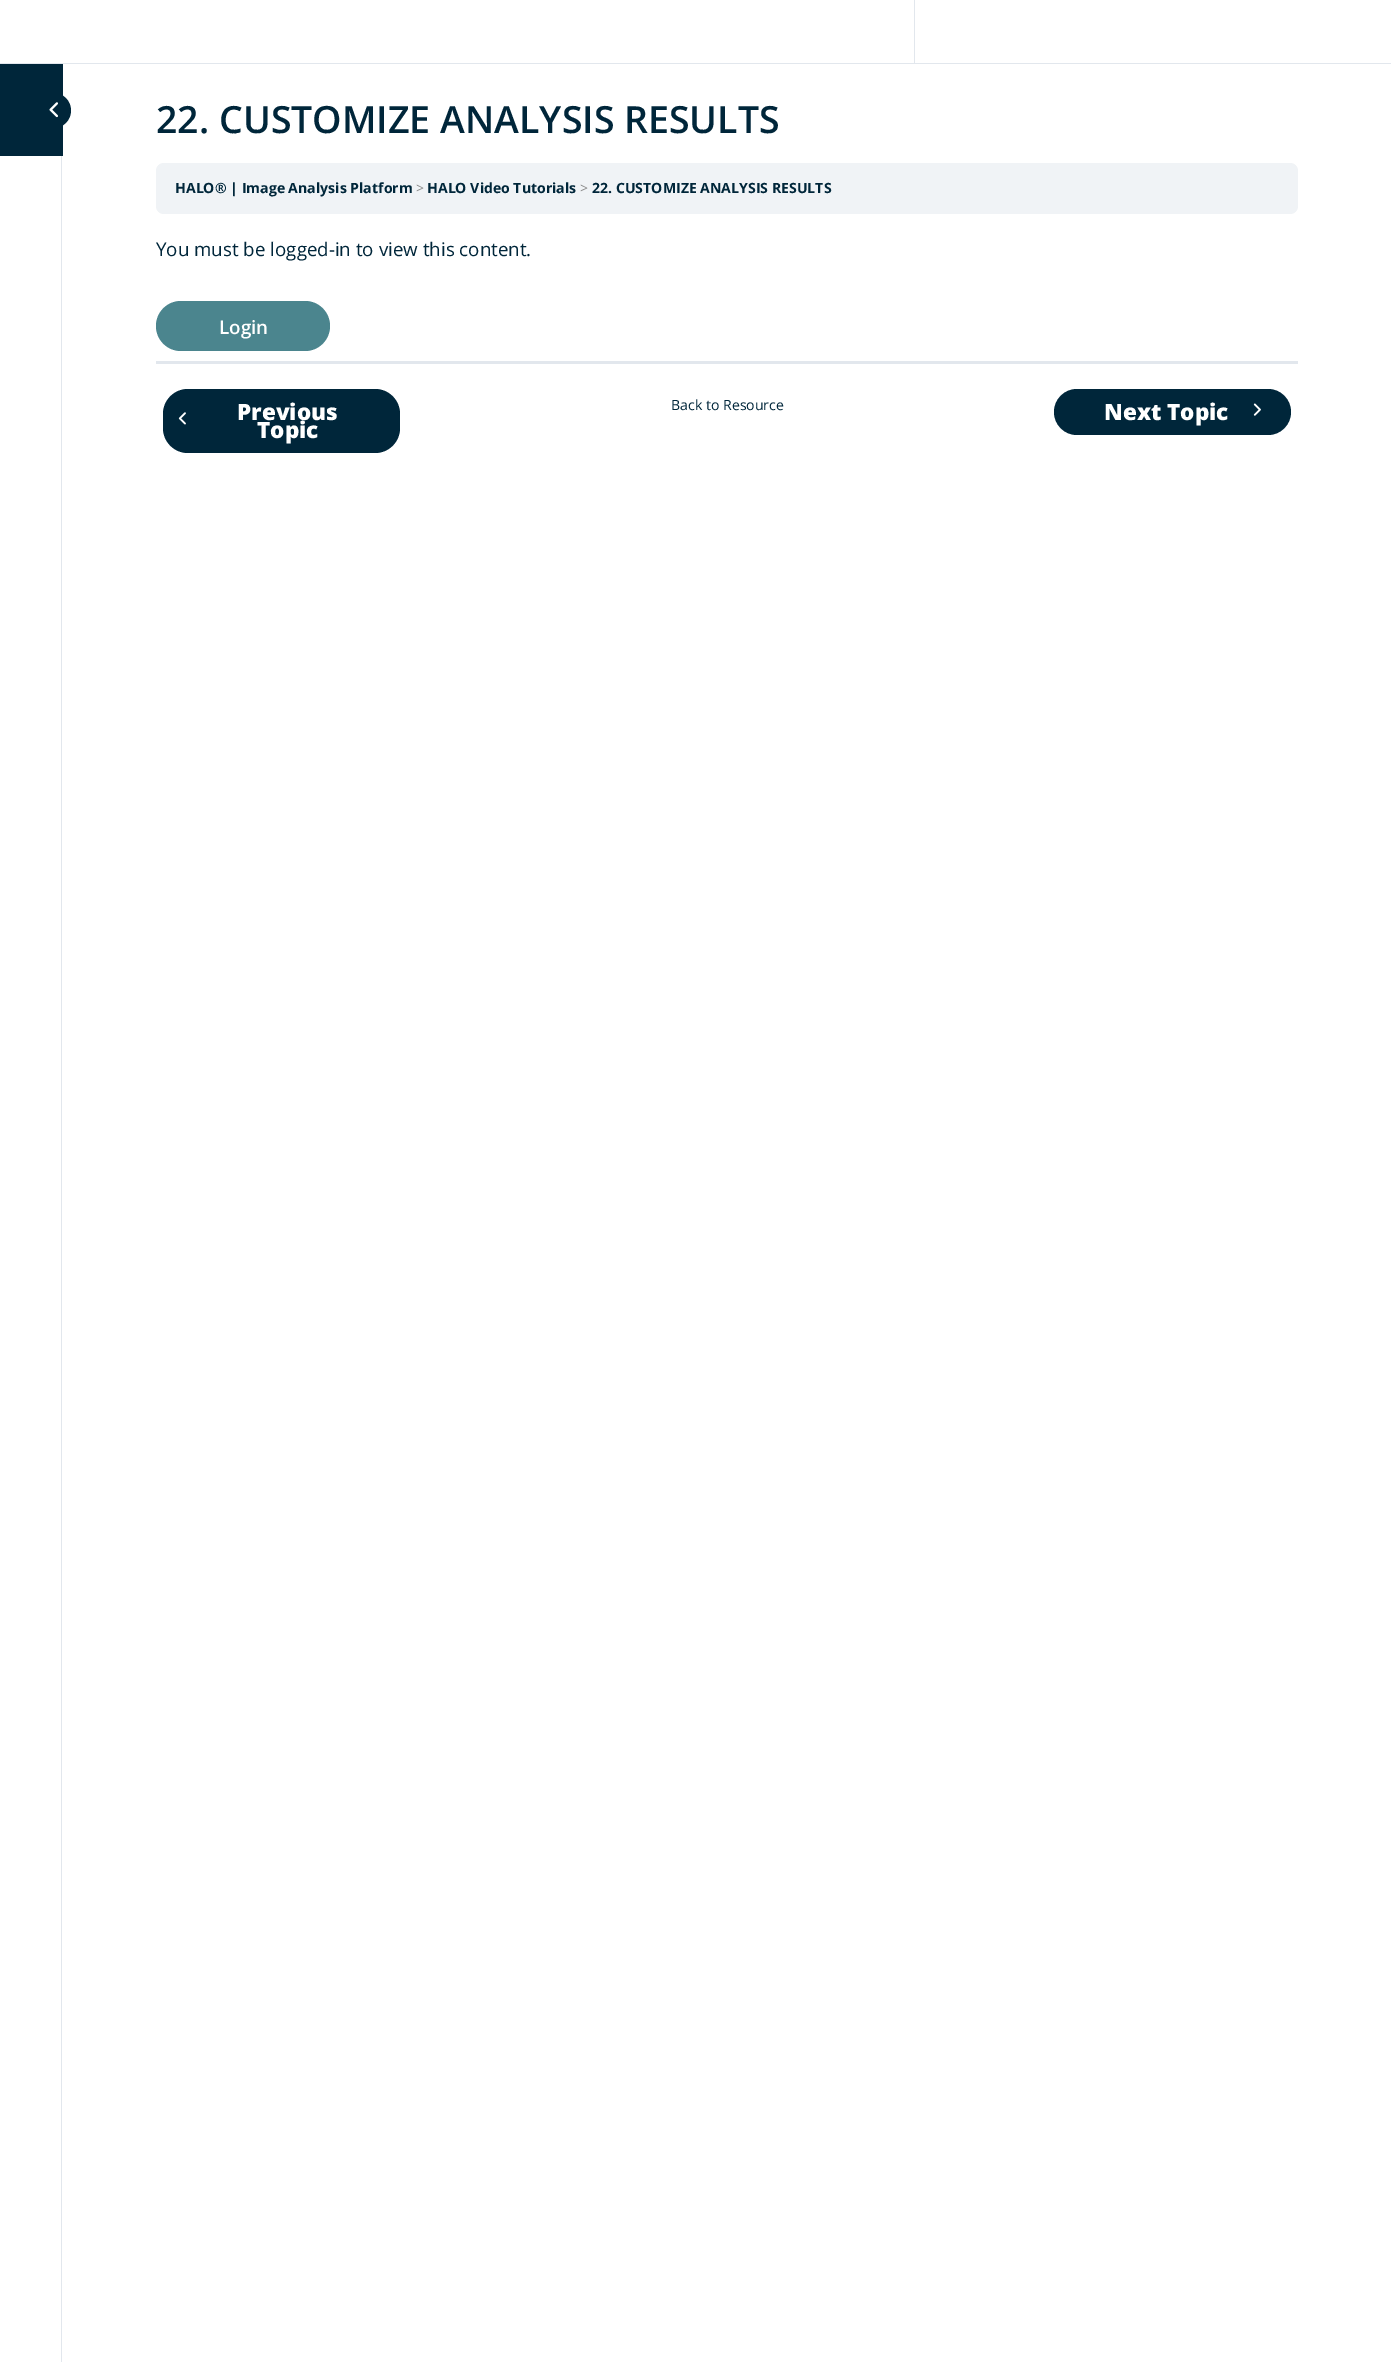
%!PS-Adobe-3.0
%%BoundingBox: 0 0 1391 2362
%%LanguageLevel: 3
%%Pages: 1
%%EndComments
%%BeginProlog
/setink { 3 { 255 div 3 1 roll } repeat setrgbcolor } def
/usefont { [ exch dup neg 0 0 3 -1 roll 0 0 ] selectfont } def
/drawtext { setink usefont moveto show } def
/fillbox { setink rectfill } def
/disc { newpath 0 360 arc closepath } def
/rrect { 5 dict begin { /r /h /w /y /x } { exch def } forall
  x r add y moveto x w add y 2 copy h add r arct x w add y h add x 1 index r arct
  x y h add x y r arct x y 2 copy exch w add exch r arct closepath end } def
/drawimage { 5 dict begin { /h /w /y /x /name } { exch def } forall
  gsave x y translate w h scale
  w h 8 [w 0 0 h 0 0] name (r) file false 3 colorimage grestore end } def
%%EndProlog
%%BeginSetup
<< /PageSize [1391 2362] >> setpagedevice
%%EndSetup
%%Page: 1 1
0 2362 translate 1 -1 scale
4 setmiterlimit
0 0 1391 2362 255 255 255 fillbox
61 156 1 2206 226 231 237 fillbox
0 64 63 92 0 38 58 fillbox
53.5 110.5 17.5 disc fill
(assets/img1.rgb) 49 102 9 16 drawimage
0 63 1391 1 226 231 237 fillbox
914 0 1 63 226 231 237 fillbox
(22. CUSTOMIZE ANALYSIS RESULTS) 156 133 /OpenSans-SemiBold 37.5 0 38 58 drawtext
240 243 246 setink
156 163 1142 51 8 rrect fill
(HALO® | Image Analysis Platform) 175 193 /OpenSans-Bold 14.1 0 38 58 drawtext
(>) 416 193 /OpenSans-Regular 14.1 136 136 136 drawtext
(HALO Video Tutorials) 427 193 /OpenSans-Bold 14.1 0 38 58 drawtext
(>) 580 193 /OpenSans-Regular 14.1 136 136 136 drawtext
(22. CUSTOMIZE ANALYSIS RESULTS) 592 193 /OpenSans-Bold 14.1 0 38 58 drawtext
(You must be logged-in to view this content.) 156 256 /OpenSans-Regular 18.75 0 38 58 drawtext
75 133 142 setink
156 301 174 50 25 rrect fill
(Login) 219 334 /OpenSans-SemiBold 18.75 255 255 255 drawtext
156 361 1142 3 226 231 237 fillbox
0 38 58 setink
163 389 237 64 25 rrect fill
(assets/img2.rgb) 178 412 8 13 drawimage
(Previous) 237 420 /OpenSans-ExtraBold 22.5 255 255 255 drawtext
(Topic) 257 438 /OpenSans-ExtraBold 22.5 255 255 255 drawtext
(Back to Resource) 671 410 /OpenSans-Regular 14.1 0 38 58 drawtext
1054 389 237 46 23 rrect fill
(Next Topic) 1104 420 /OpenSans-ExtraBold 22.5 255 255 255 drawtext
(assets/img3.rgb) 1253 403 8 13 drawimage
showpage
%%EOF
